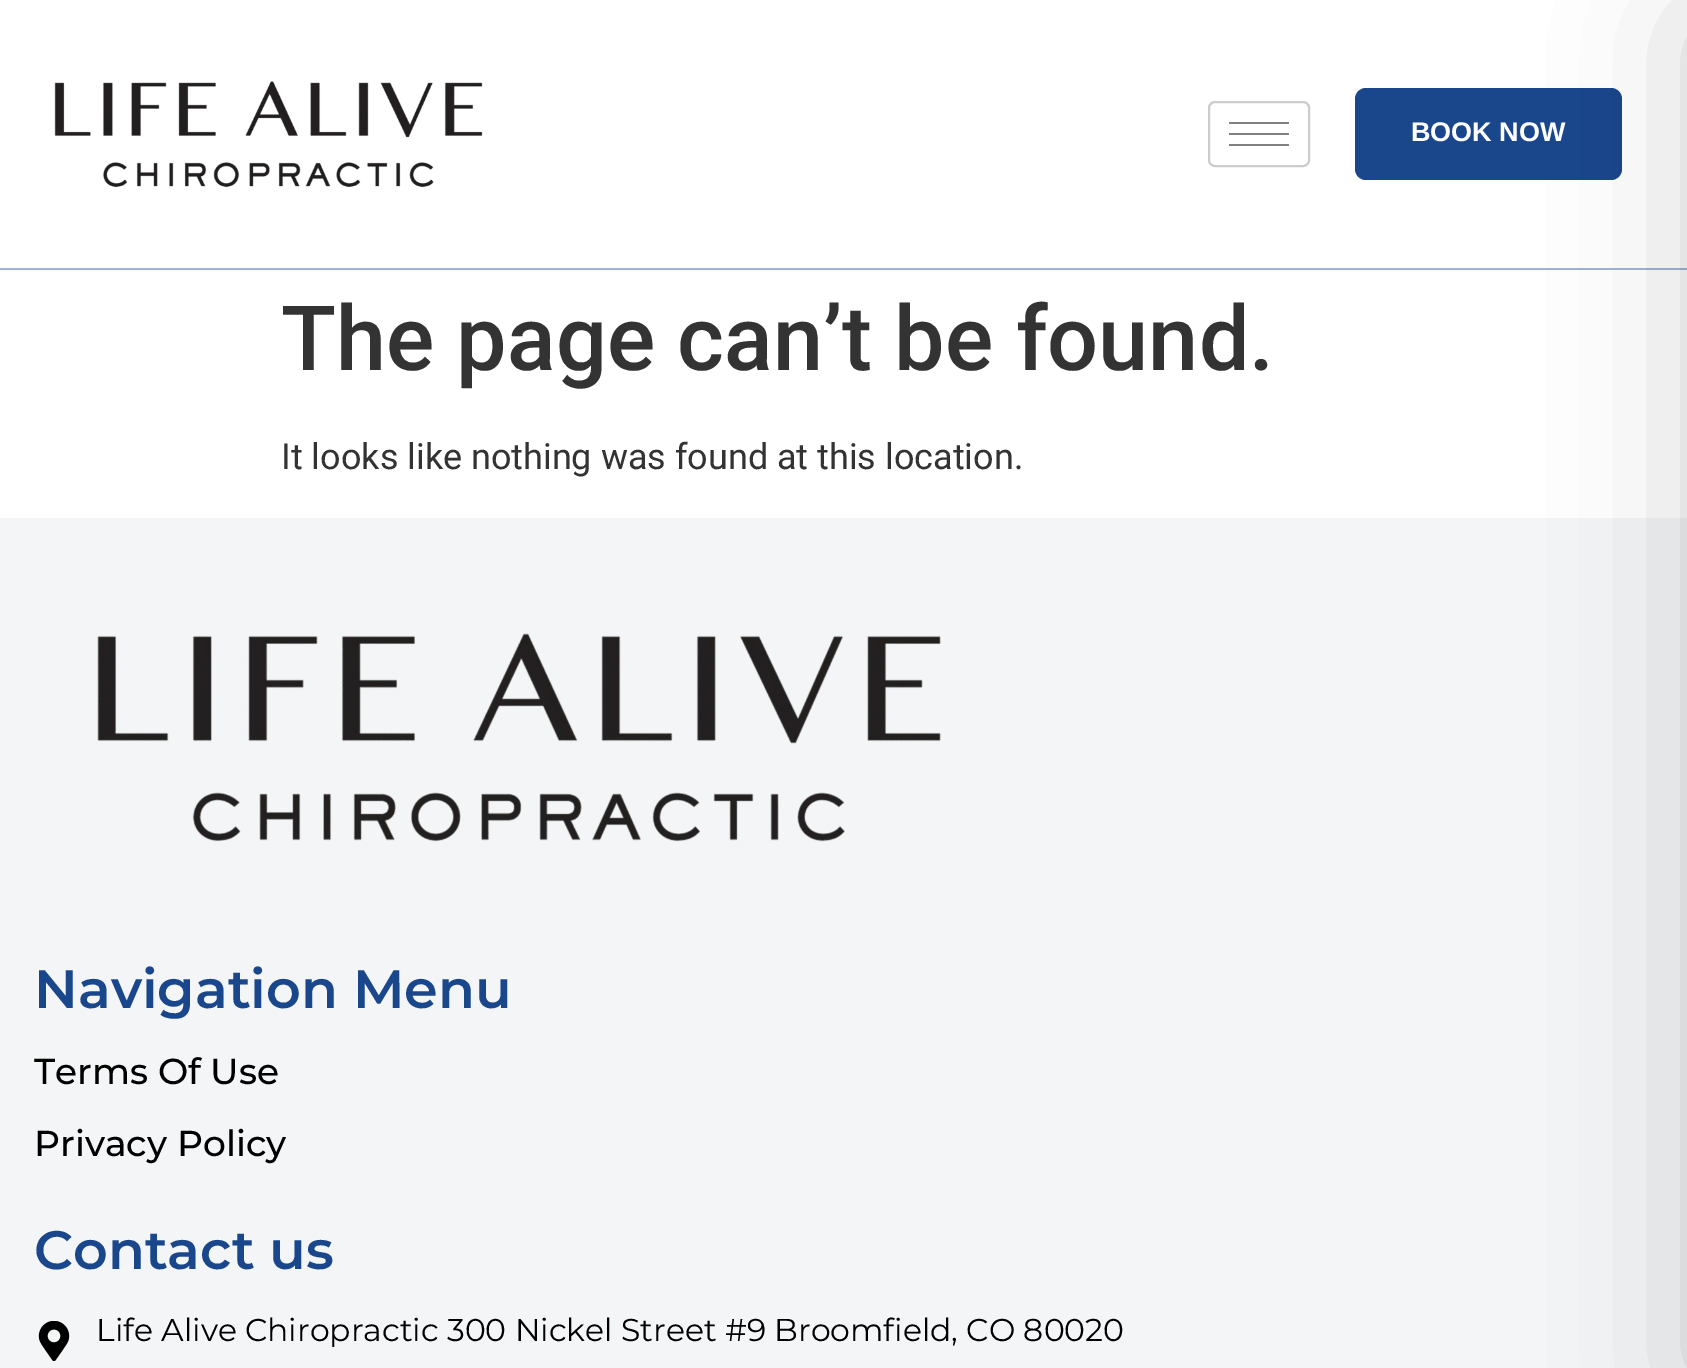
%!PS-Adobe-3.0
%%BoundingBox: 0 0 1687 1368
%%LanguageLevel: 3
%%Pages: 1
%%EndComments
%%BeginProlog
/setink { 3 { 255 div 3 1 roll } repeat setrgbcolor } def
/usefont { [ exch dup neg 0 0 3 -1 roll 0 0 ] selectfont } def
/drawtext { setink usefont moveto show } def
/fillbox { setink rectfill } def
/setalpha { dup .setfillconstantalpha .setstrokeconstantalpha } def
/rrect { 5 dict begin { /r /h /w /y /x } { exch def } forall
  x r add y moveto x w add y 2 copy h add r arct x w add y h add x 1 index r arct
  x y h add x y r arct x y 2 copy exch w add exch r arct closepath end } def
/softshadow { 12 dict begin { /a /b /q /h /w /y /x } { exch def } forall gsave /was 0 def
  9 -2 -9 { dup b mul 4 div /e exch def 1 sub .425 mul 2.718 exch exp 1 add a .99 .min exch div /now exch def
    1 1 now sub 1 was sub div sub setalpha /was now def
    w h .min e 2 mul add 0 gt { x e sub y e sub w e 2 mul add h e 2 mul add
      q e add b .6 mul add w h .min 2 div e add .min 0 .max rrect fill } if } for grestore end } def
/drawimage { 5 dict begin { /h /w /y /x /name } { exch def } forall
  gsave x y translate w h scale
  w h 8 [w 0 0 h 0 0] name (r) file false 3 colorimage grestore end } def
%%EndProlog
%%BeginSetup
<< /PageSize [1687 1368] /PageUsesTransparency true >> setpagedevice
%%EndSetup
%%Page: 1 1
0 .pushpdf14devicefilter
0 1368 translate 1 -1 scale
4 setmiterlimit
0 0 1687 1368 255 255 255 fillbox
0 268 1687 2 161 180 208 fillbox
(assets/img1.rgb) 54 81 429 107 drawimage
204 204 204 setink
2 setlinewidth
1209 102 100 64 6 rrect stroke
1229 122 60 2 128 128 128 fillbox
1229 133 60 2 128 128 128 fillbox
1229 144 60 2 128 128 128 fillbox
26 71 140 setink
1355 88 267 92 11 rrect fill
(BOOK NOW) 1411 141 /LiberationSans-Bold 27 255 255 255 drawtext
(The page can’t be found.) 281 370 /Roboto-Medium 90 51 51 51 drawtext
(It looks like nothing was found at this location.) 281 469 /Roboto-Regular 36 51 51 51 drawtext
0 518 1687 850 243 245 246 fillbox
(assets/img2.rgb) 97 633 844 209 drawimage
(Navigation Menu) 34 1008 /Montserrat-SemiBold 54 26 71 140 drawtext
(Terms Of Use) 34 1084 /Montserrat-Medium 36 0 0 0 drawtext
(Privacy Policy) 34 1156 /Montserrat-Medium 36 0 0 0 drawtext
(Contact us) 34 1269 /Montserrat-SemiBold 54 26 71 140 drawtext
(assets/img3.rgb) 38 1321 32 40 drawimage
(Life Alive Chiropractic 300 Nickel Street #9 Broomfield, CO 80020) 96 1341 /Montserrat-Regular 31.5 0 0 0 drawtext
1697 23 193 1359 0 67.5 0.2 softshadow
.poppdf14devicefilter showpage
%%EOF
